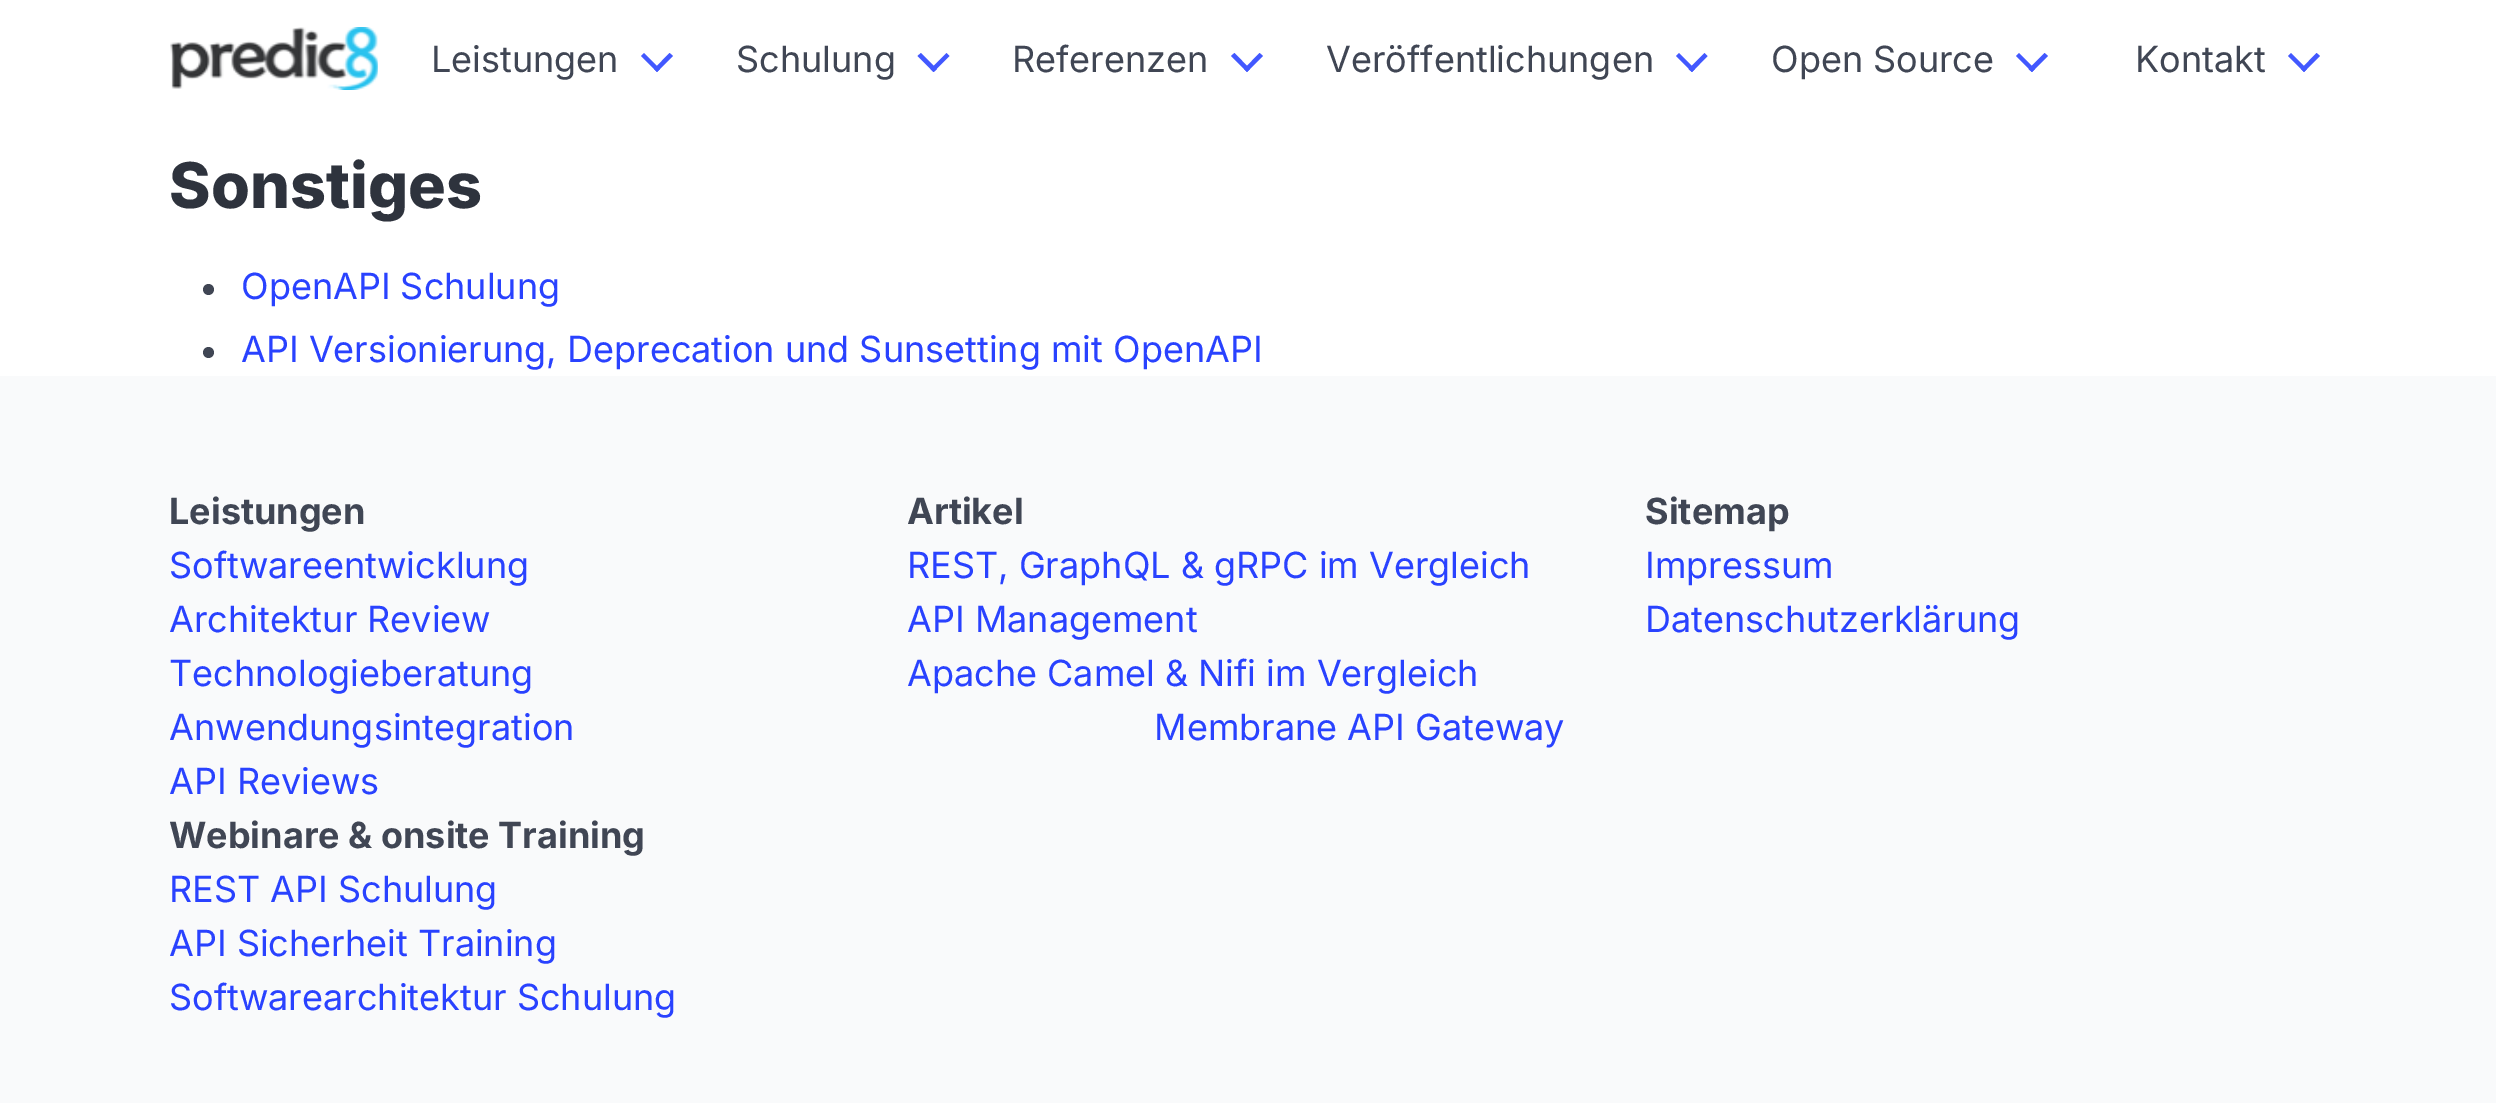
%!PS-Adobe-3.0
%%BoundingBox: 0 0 2496 1103
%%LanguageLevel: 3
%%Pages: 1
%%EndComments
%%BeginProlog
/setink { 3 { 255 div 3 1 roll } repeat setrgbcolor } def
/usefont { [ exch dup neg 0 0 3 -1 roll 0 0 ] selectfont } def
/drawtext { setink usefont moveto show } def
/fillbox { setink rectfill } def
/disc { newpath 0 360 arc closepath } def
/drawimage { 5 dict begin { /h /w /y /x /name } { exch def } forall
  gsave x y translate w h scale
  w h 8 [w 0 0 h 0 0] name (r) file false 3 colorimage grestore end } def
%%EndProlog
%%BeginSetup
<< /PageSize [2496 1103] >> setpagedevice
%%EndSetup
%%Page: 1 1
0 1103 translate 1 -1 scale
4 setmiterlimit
0 0 2496 1103 255 255 255 fillbox
(assets/img1.rgb) 170 27 208 63 drawimage
(Leistungen) 431 72 /Inter-Regular 36 64 70 84 drawtext
66 88 255 setink
654 69 moveto 669.5 53 lineto 673 56 lineto 657 72 lineto closepath fill
641 56 moveto 644 53 lineto 660 69 lineto 657 72 lineto closepath fill
(Schulung) 736 72 /Inter-Regular 36 64 70 84 drawtext
66 88 255 setink
930.5 69 moveto 946.5 53 lineto 949.5 56 lineto 933.5 72 lineto closepath fill
917.5 56 moveto 921 53 lineto 937 69 lineto 933.5 72 lineto closepath fill
(Referenzen) 1012 72 /Inter-Regular 36 64 70 84 drawtext
66 88 255 setink
1244 69 moveto 1259.5 53 lineto 1263 56 lineto 1247 72 lineto closepath fill
1231 56 moveto 1234.5 53 lineto 1250 69 lineto 1247 72 lineto closepath fill
(Veröffentlichungen) 1326 72 /Inter-Regular 36 64 70 84 drawtext
66 88 255 setink
1688.5 69 moveto 1704.5 53 lineto 1707.5 56 lineto 1692 72 lineto closepath fill
1676 56 moveto 1679 53 lineto 1695 69 lineto 1692 72 lineto closepath fill
(Open Source) 1771 72 /Inter-Regular 36 64 70 84 drawtext
66 88 255 setink
2028.5 69 moveto 2044.5 53 lineto 2048 56 lineto 2032 72 lineto closepath fill
2016 56 moveto 2019 53 lineto 2035 69 lineto 2032 72 lineto closepath fill
(Kontakt) 2135 72 /Inter-Regular 36 64 70 84 drawtext
66 88 255 setink
2301 69 moveto 2316.5 53 lineto 2320 56 lineto 2304 72 lineto closepath fill
2288 56 moveto 2291 53 lineto 2307 69 lineto 2304 72 lineto closepath fill
(Sonstiges) 169 208 /Inter-ExtraBold 63 46 51 61 drawtext
64 70 84 setink
208.5 289.5 5.5 disc fill
(OpenAPI Schulung) 241 299 /Inter-Regular 36 41 66 255 drawtext
64 70 84 setink
208.5 352.5 5.5 disc fill
(API Versionierung, Deprecation und Sunsetting mit OpenAPI) 241 362 /Inter-Regular 36 41 66 255 drawtext
0 376 2496 727 249 250 251 fillbox
(Leistungen) 169 524 /Inter-Bold 36 64 70 84 drawtext
(Softwareentwicklung) 169 578 /Inter-Regular 36 41 66 255 drawtext
(Architektur Review) 169 632 /Inter-Regular 36 41 66 255 drawtext
(Technologieberatung) 169 686 /Inter-Regular 36 41 66 255 drawtext
(Anwendungsintegration) 169 740 /Inter-Regular 36 41 66 255 drawtext
(API Reviews) 169 794 /Inter-Regular 36 41 66 255 drawtext
(Webinare & onsite Training) 169 848 /Inter-Bold 36 64 70 84 drawtext
(REST API Schulung) 169 902 /Inter-Regular 36 41 66 255 drawtext
(API Sicherheit Training) 169 956 /Inter-Regular 36 41 66 255 drawtext
(Softwarearchitektur Schulung) 169 1010 /Inter-Regular 36 41 66 255 drawtext
(Artikel) 907 524 /Inter-Bold 36 64 70 84 drawtext
(REST, GraphQL & gRPC im Vergleich) 907 578 /Inter-Regular 36 41 66 255 drawtext
(API Management) 907 632 /Inter-Regular 36 41 66 255 drawtext
(Apache Camel & Nifi im Vergleich) 907 686 /Inter-Regular 36 41 66 255 drawtext
(Membrane API Gateway) 1154 740 /Inter-Regular 36 41 66 255 drawtext
(Sitemap) 1645 524 /Inter-Bold 36 64 70 84 drawtext
(Impressum) 1645 578 /Inter-Regular 36 41 66 255 drawtext
(Datenschutzerklärung) 1645 632 /Inter-Regular 36 41 66 255 drawtext
showpage
%%EOF
